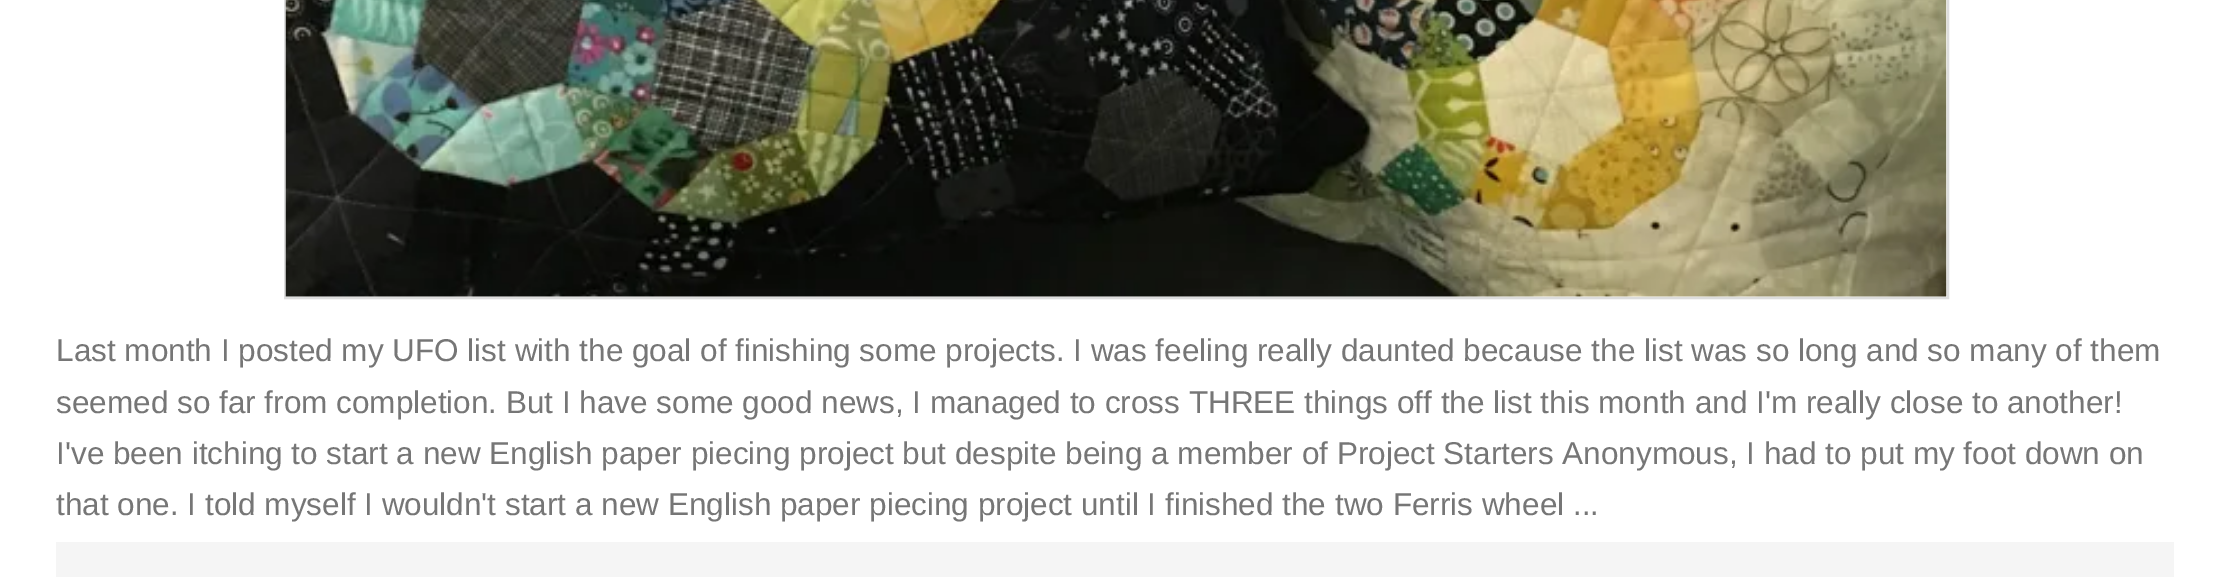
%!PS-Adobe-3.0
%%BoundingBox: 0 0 2228 577
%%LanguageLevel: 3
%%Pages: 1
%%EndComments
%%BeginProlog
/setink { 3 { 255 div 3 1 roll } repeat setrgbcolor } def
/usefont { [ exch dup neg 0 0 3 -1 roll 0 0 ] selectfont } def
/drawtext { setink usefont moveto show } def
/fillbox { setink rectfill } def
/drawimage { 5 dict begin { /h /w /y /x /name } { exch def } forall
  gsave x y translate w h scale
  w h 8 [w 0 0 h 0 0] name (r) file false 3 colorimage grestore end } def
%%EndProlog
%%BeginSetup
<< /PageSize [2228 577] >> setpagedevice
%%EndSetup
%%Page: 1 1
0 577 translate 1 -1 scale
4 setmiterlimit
0 0 2228 577 255 255 255 fillbox
221 221 221 setink
2 setlinewidth
285 -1 1663 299 rectstroke
(assets/img1.rgb) 285 0 1662 297 drawimage
(Last month I posted my UFO list with the goal of finishing some projects. I was feeling really daunted because the list was so long and so many of them) 56 361 /LiberationSans-Regular 31.5 118 118 118 drawtext
(seemed so far from completion. But I have some good news, I managed to cross THREE things off the list this month and I'm really close to another!) 56 413 /LiberationSans-Regular 31.5 118 118 118 drawtext
(I've been itching to start a new English paper piecing project but despite being a member of Project Starters Anonymous, I had to put my foot down on) 56 464 /LiberationSans-Regular 31.5 118 118 118 drawtext
(that one. I told myself I wouldn't start a new English paper piecing project until I finished the two Ferris wheel ...) 56 515 /LiberationSans-Regular 31.5 118 118 118 drawtext
56 542 2118 35 245 245 245 fillbox
showpage
%%EOF
